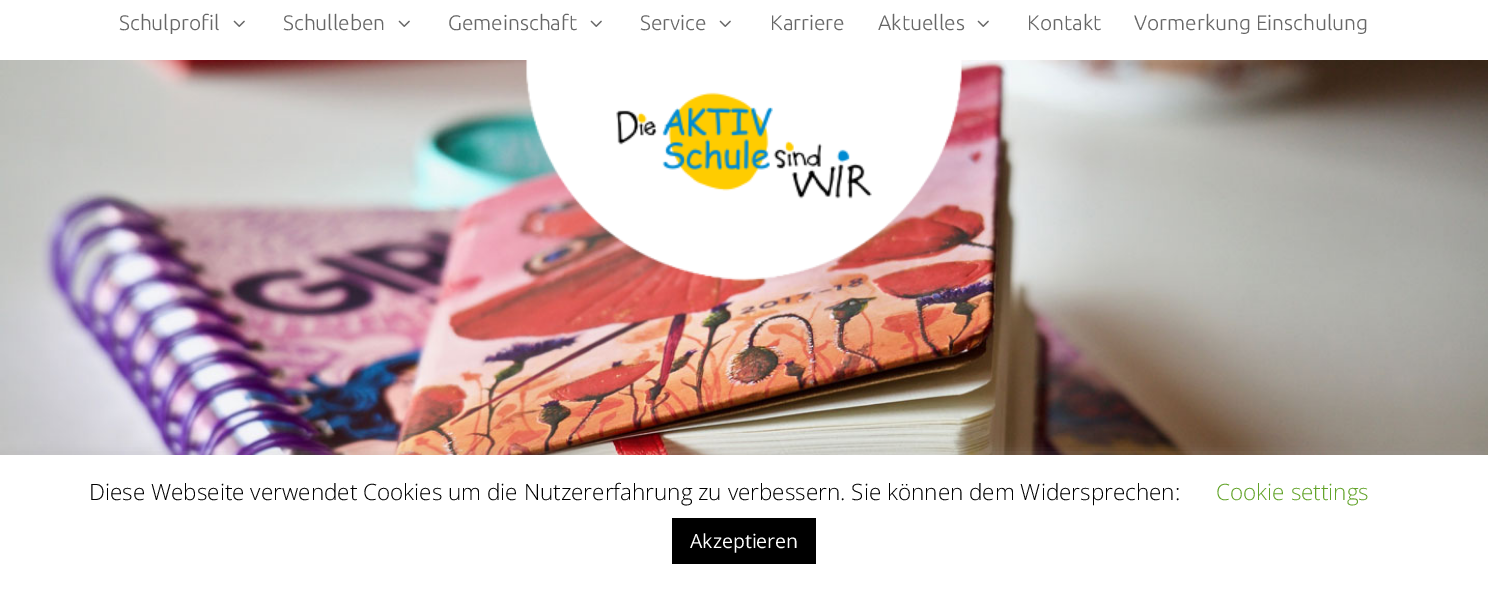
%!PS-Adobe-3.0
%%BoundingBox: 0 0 1488 589
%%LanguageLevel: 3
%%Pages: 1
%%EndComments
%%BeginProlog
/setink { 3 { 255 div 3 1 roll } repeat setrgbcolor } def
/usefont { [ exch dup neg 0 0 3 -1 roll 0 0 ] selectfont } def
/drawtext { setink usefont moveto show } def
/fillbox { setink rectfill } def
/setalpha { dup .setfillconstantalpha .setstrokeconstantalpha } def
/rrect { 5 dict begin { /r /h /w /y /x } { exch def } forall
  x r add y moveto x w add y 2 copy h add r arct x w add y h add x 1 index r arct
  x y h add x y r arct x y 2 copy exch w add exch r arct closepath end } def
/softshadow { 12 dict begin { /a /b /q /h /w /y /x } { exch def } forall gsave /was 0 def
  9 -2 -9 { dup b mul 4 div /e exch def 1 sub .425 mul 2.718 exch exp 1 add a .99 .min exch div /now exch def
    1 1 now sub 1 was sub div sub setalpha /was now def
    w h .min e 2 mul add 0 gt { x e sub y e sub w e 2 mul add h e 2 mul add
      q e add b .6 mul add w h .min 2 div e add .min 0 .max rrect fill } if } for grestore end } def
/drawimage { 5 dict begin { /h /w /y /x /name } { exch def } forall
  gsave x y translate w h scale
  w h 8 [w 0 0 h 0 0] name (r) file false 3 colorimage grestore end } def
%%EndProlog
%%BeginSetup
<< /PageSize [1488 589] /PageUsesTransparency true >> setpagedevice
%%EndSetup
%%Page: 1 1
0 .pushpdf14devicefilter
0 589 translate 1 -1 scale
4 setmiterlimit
0 0 1488 589 255 255 255 fillbox
(Schulprofil) 119 30 /Ubuntu-Light 21 102 102 102 drawtext
(assets/img1.rgb) 233 20 12 7 drawimage
(Schulleben) 283 30 /Ubuntu-Light 21 102 102 102 drawtext
(assets/img1.rgb) 398 20 12 7 drawimage
(Gemeinschaft) 448 30 /Ubuntu-Light 21 102 102 102 drawtext
(assets/img1.rgb) 590 20 12 7 drawimage
(Service) 640 30 /Ubuntu-Light 21 102 102 102 drawtext
(assets/img1.rgb) 719 20 12 7 drawimage
(Karriere) 770 30 /Ubuntu-Light 21 102 102 102 drawtext
(Aktuelles) 878 30 /Ubuntu-Light 21 102 102 102 drawtext
(assets/img1.rgb) 977 20 12 7 drawimage
(Kontakt) 1027 30 /Ubuntu-Light 21 102 102 102 drawtext
(Vormerkung Einschulung) 1134 30 /Ubuntu-Light 21 102 102 102 drawtext
(assets/img3.rgb) 0 60 1488 395 drawimage
(assets/img2.rgb) 526 60 436 221 drawimage
172 171 171 setink
0 453 1488 135 0 7.5 0.3 softshadow
0 455 1488 134 255 255 255 fillbox
(Diese Webseite verwendet Cookies um die Nutzererfahrung zu verbessern. Sie können dem Widersprechen:) 89 500 /OpenSans-Light 22.5 0 0 0 drawtext
(Cookie settings) 1216 500 /OpenSans-Light 22.5 98 163 41 drawtext
672 518 144 46 0 0 0 fillbox
(Akzeptieren) 690 548 /OpenSans-Regular 19.5 255 255 255 drawtext
.poppdf14devicefilter showpage
%%EOF
